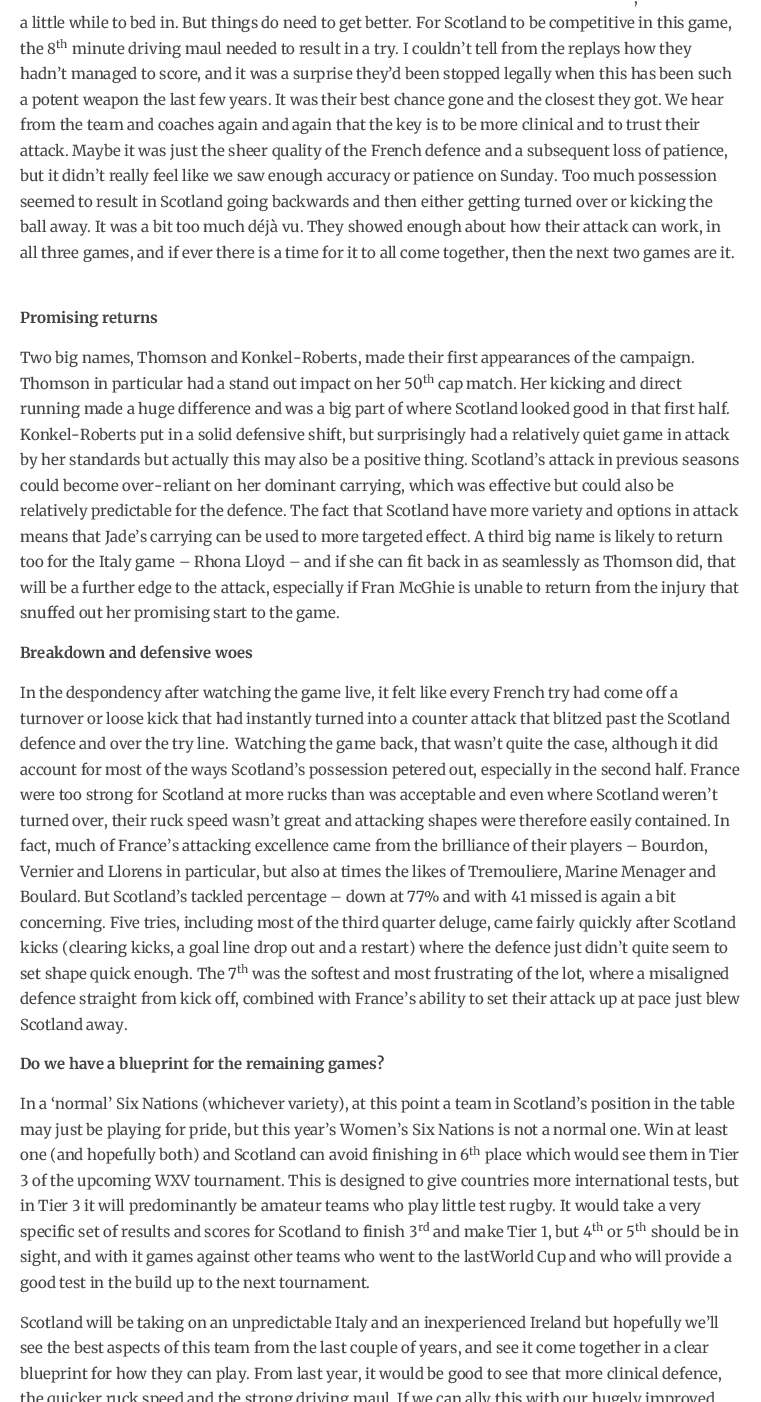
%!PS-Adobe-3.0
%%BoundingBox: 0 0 761 1402
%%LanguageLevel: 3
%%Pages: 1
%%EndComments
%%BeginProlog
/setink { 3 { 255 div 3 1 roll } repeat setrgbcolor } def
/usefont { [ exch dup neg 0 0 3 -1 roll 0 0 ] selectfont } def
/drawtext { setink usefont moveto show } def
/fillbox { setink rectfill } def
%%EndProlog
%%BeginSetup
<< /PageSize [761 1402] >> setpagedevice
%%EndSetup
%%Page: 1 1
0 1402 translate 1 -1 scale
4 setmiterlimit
0 0 761 1402 255 255 255 fillbox
(,) 634 3 /Merriweather-Regular 15 68 68 68 drawtext
(a little while to bed in. But things do need to get better. For Scotland to be competitive in this game,) 20 28 /Merriweather-Regular 15 68 68 68 drawtext
(the 8) 20 54 /Merriweather-Regular 15 68 68 68 drawtext
(th) 56 48 /Merriweather-Regular 11 68 68 68 drawtext
(minute driving maul needed to result in a try. I couldn’t tell from the replays how they) 72 54 /Merriweather-Regular 15 68 68 68 drawtext
(hadn’t managed to score, and it was a surprise they’d been stopped legally when this has been such) 20 79 /Merriweather-Regular 15 68 68 68 drawtext
(a potent weapon the last few years. It was their best chance gone and the closest they got. We hear) 20 105 /Merriweather-Regular 15 68 68 68 drawtext
(from the team and coaches again and again that the key is to be more clinical and to trust their) 20 130 /Merriweather-Regular 15 68 68 68 drawtext
(attack. Maybe it was just the sheer quality of the French defence and a subsequent loss of patience,) 20 156 /Merriweather-Regular 15 68 68 68 drawtext
(but it didn’t really feel like we saw enough accuracy or patience on Sunday. Too much possession) 20 181 /Merriweather-Regular 15 68 68 68 drawtext
(seemed to result in Scotland going backwards and then either getting turned over or kicking the) 20 207 /Merriweather-Regular 15 68 68 68 drawtext
(ball away. It was a bit too much déjà vu. They showed enough about how their attack can work, in) 20 232 /Merriweather-Regular 15 68 68 68 drawtext
(all three games, and if ever there is a time for it to all come together, then the next two games are it.) 20 258 /Merriweather-Regular 15 68 68 68 drawtext
(Promising returns) 20 323 /Merriweather-Bold 15 68 68 68 drawtext
(Two big names, Thomson and Konkel-Roberts, made their first appearances of the campaign.) 20 363 /Merriweather-Regular 15 68 68 68 drawtext
(Thomson in particular had a stand out impact on her 50) 20 389 /Merriweather-Regular 15 68 68 68 drawtext
(th) 423 383 /Merriweather-Regular 11 68 68 68 drawtext
(cap match. Her kicking and direct) 438 389 /Merriweather-Regular 15 68 68 68 drawtext
(running made a huge difference and was a big part of where Scotland looked good in that first half.) 20 414 /Merriweather-Regular 15 68 68 68 drawtext
(Konkel-Roberts put in a solid defensive shift, but surprisingly had a relatively quiet game in attack) 20 440 /Merriweather-Regular 15 68 68 68 drawtext
(by her standards but actually this may also be a positive thing. Scotland’s attack in previous seasons) 20 465 /Merriweather-Regular 15 68 68 68 drawtext
(could become over-reliant on her dominant carrying, which was effective but could also be) 20 491 /Merriweather-Regular 15 68 68 68 drawtext
(relatively predictable for the defence. The fact that Scotland have more variety and options in attack) 20 516 /Merriweather-Regular 15 68 68 68 drawtext
(means that Jade’s carrying can be used to more targeted effect. A third big name is likely to return) 20 542 /Merriweather-Regular 15 68 68 68 drawtext
(too for the Italy game – Rhona Lloyd – and if she can fit back in as seamlessly as Thomson did, that) 20 567 /Merriweather-Regular 15 68 68 68 drawtext
(will be a further edge to the attack, especially if Fran McGhie is unable to return from the injury that) 20 593 /Merriweather-Regular 15 68 68 68 drawtext
(snuffed out her promising start to the game.) 20 618 /Merriweather-Regular 15 68 68 68 drawtext
(Breakdown and defensive woes) 20 658 /Merriweather-Bold 15 68 68 68 drawtext
(In the despondency after watching the game live, it felt like every French try had come off a) 20 698 /Merriweather-Regular 15 68 68 68 drawtext
(turnover or loose kick that had instantly turned into a counter attack that blitzed past the Scotland) 20 724 /Merriweather-Regular 15 68 68 68 drawtext
(defence and over the try line.  Watching the game back, that wasn’t quite the case, although it did) 20 749 /Merriweather-Regular 15 68 68 68 drawtext
(account for most of the ways Scotland’s possession petered out, especially in the second half. France) 20 775 /Merriweather-Regular 15 68 68 68 drawtext
(were too strong for Scotland at more rucks than was acceptable and even where Scotland weren’t) 20 800 /Merriweather-Regular 15 68 68 68 drawtext
(turned over, their ruck speed wasn’t great and attacking shapes were therefore easily contained. In) 20 826 /Merriweather-Regular 15 68 68 68 drawtext
(fact, much of France’s attacking excellence came from the brilliance of their players – Bourdon,) 20 851 /Merriweather-Regular 15 68 68 68 drawtext
(Vernier and Llorens in particular, but also at times the likes of Tremouliere, Marine Menager and) 20 877 /Merriweather-Regular 15 68 68 68 drawtext
(Boulard. But Scotland’s tackled percentage – down at 77% and with 41 missed is again a bit) 20 902 /Merriweather-Regular 15 68 68 68 drawtext
(concerning. Five tries, including most of the third quarter deluge, came fairly quickly after Scotland) 20 928 /Merriweather-Regular 15 68 68 68 drawtext
(kicks \(clearing kicks, a goal line drop out and a restart\) where the defence just didn’t quite seem to) 20 953 /Merriweather-Regular 15 68 68 68 drawtext
(set shape quick enough. The 7) 20 979 /Merriweather-Regular 15 68 68 68 drawtext
(th) 237 973 /Merriweather-Regular 11 68 68 68 drawtext
(was the softest and most frustrating of the lot, where a misaligned) 252 979 /Merriweather-Regular 15 68 68 68 drawtext
(defence straight from kick off, combined with France’s ability to set their attack up at pace just blew) 20 1004 /Merriweather-Regular 15 68 68 68 drawtext
(Scotland away.) 20 1030 /Merriweather-Regular 15 68 68 68 drawtext
(Do we have a blueprint for the remaining games?) 20 1069 /Merriweather-Bold 15 68 68 68 drawtext
(In a ‘normal’ Six Nations \(whichever variety\), at this point a team in Scotland’s position in the table) 20 1109 /Merriweather-Regular 15 68 68 68 drawtext
(may just be playing for pride, but this year’s Women’s Six Nations is not a normal one. Win at least) 20 1135 /Merriweather-Regular 15 68 68 68 drawtext
(one \(and hopefully both\) and Scotland can avoid finishing in 6) 20 1160 /Merriweather-Regular 15 68 68 68 drawtext
(th) 469 1155 /Merriweather-Regular 11 68 68 68 drawtext
(place which would see them in Tier) 485 1160 /Merriweather-Regular 15 68 68 68 drawtext
(3 of the upcoming WXV tournament. This is designed to give countries more international tests, but) 20 1186 /Merriweather-Regular 15 68 68 68 drawtext
(in Tier 3 it will predominantly be amateur teams who play little test rugby. It would take a very) 20 1211 /Merriweather-Regular 15 68 68 68 drawtext
(specific set of results and scores for Scotland to finish 3) 20 1237 /Merriweather-Regular 15 68 68 68 drawtext
(rd) 418 1231 /Merriweather-Regular 11 68 68 68 drawtext
(and make Tier 1, but 4) 433 1237 /Merriweather-Regular 15 68 68 68 drawtext
(th) 592 1231 /Merriweather-Regular 11 68 68 68 drawtext
(or 5) 607 1237 /Merriweather-Regular 15 68 68 68 drawtext
(th) 635 1231 /Merriweather-Regular 11 68 68 68 drawtext
(should be in) 651 1237 /Merriweather-Regular 15 68 68 68 drawtext
(sight, and with it games against other teams who went to the lastWorld Cup and who will provide a) 20 1262 /Merriweather-Regular 15 68 68 68 drawtext
(good test in the build up to the next tournament.) 20 1288 /Merriweather-Regular 15 68 68 68 drawtext
(Scotland will be taking on an unpredictable Italy and an inexperienced Ireland but hopefully we’ll) 20 1328 /Merriweather-Regular 15 68 68 68 drawtext
(see the best aspects of this team from the last couple of years, and see it come together in a clear) 20 1353 /Merriweather-Regular 15 68 68 68 drawtext
(blueprint for how they can play. From last year, it would be good to see that more clinical defence,) 20 1379 /Merriweather-Regular 15 68 68 68 drawtext
(the quicker ruck speed and the strong driving maul. If we can ally this with our hugely improved) 20 1404 /Merriweather-Regular 15 68 68 68 drawtext
showpage
%%EOF
